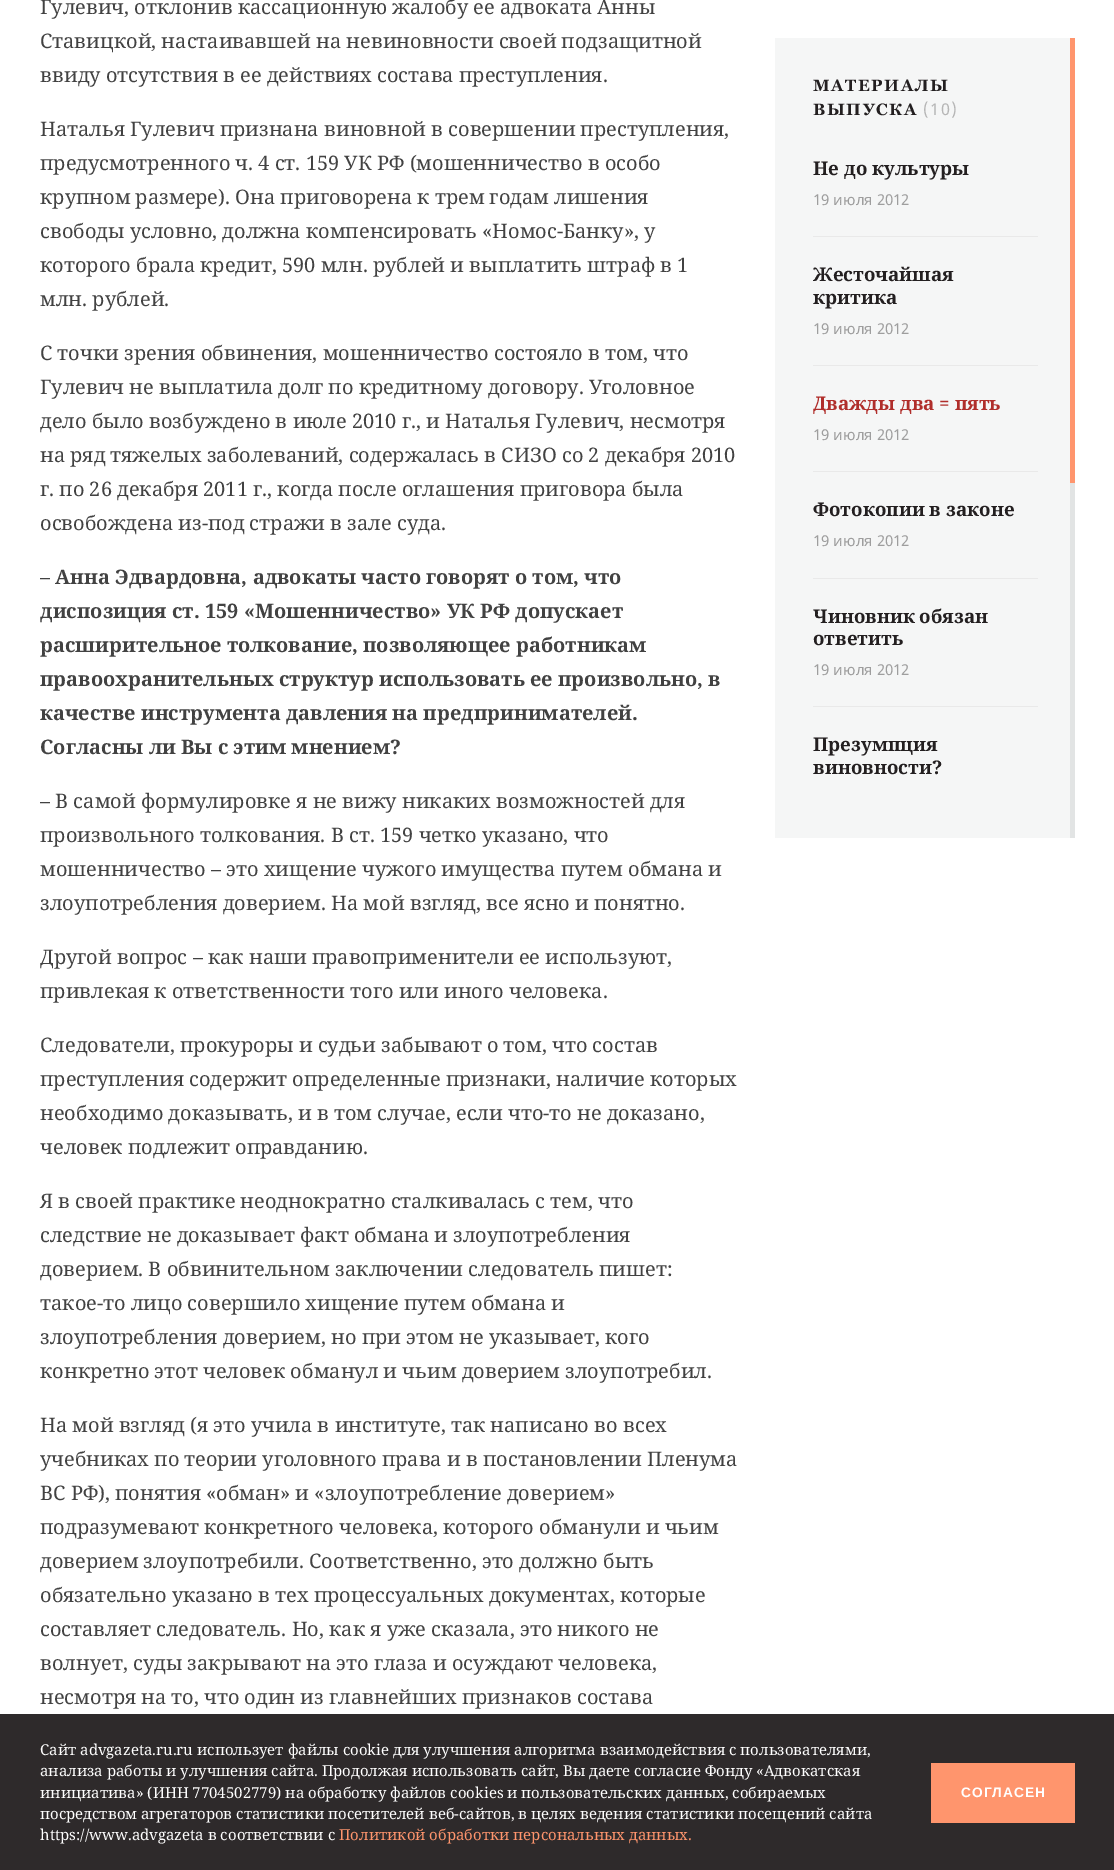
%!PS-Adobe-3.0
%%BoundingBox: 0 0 1114 1870
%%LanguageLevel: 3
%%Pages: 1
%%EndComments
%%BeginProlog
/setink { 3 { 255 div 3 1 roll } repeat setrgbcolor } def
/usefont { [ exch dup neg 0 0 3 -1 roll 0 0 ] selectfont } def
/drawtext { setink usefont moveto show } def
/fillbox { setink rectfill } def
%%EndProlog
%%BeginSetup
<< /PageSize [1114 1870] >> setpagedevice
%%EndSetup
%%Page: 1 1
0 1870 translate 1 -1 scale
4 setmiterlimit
0 0 1114 1870 255 255 255 fillbox
0 1714 1114 156 46 42 43 fillbox
(Гулевич, отклонив кассационную жалобу ее адвоката Анны) 40 14 /NotoSerif-Regular 20 66 66 66 drawtext
(Ставицкой, настаивавшей на невиновности своей подзащитной) 40 48 /NotoSerif-Regular 20 66 66 66 drawtext
(ввиду отсутствия в ее действиях состава преступления.) 40 82 /NotoSerif-Regular 20 66 66 66 drawtext
(Наталья Гулевич признана виновной в совершении преступления,) 40 136 /NotoSerif-Regular 20 66 66 66 drawtext
(предусмотренного ч. 4 ст. 159 УК РФ \(мошенничество в особо) 40 170 /NotoSerif-Regular 20 66 66 66 drawtext
(крупном размере\). Она приговорена к трем годам лишения) 40 204 /NotoSerif-Regular 20 66 66 66 drawtext
(свободы условно, должна компенсировать «Номос-Банку», у) 40 238 /NotoSerif-Regular 20 66 66 66 drawtext
(которого брала кредит, 590 млн. рублей и выплатить штраф в 1) 40 272 /NotoSerif-Regular 20 66 66 66 drawtext
(млн. рублей.) 40 306 /NotoSerif-Regular 20 66 66 66 drawtext
(С точки зрения обвинения, мошенничество состояло в том, что) 40 360 /NotoSerif-Regular 20 66 66 66 drawtext
(Гулевич не выплатила долг по кредитному договору. Уголовное) 40 394 /NotoSerif-Regular 20 66 66 66 drawtext
(дело было возбуждено в июле 2010 г., и Наталья Гулевич, несмотря) 40 428 /NotoSerif-Regular 20 66 66 66 drawtext
(на ряд тяжелых заболеваний, содержалась в СИЗО со 2 декабря 2010) 40 462 /NotoSerif-Regular 20 66 66 66 drawtext
(г. по 26 декабря 2011 г., когда после оглашения приговора была) 40 496 /NotoSerif-Regular 20 66 66 66 drawtext
(освобождена из-под стражи в зале суда.) 40 530 /NotoSerif-Regular 20 66 66 66 drawtext
(– Анна Эдвардовна, адвокаты часто говорят о том, что) 40 584 /NotoSerif-Bold 20 66 66 66 drawtext
(диспозиция ст. 159 «Мошенничество» УК РФ допускает) 40 618 /NotoSerif-Bold 20 66 66 66 drawtext
(расширительное толкование, позволяющее работникам) 40 652 /NotoSerif-Bold 20 66 66 66 drawtext
(правоохранительных структур использовать ее произвольно, в) 40 686 /NotoSerif-Bold 20 66 66 66 drawtext
(качестве инструмента давления на предпринимателей.) 40 720 /NotoSerif-Bold 20 66 66 66 drawtext
(Согласны ли Вы с этим мнением?) 40 754 /NotoSerif-Bold 20 66 66 66 drawtext
(– В самой формулировке я не вижу никаких возможностей для) 40 808 /NotoSerif-Regular 20 66 66 66 drawtext
(произвольного толкования. В ст. 159 четко указано, что) 40 842 /NotoSerif-Regular 20 66 66 66 drawtext
(мошенничество – это хищение чужого имущества путем обмана и) 40 876 /NotoSerif-Regular 20 66 66 66 drawtext
(злоупотребления доверием. На мой взгляд, все ясно и понятно.) 40 910 /NotoSerif-Regular 20 66 66 66 drawtext
(Другой вопрос – как наши правоприменители ее используют,) 40 964 /NotoSerif-Regular 20 66 66 66 drawtext
(привлекая к ответственности того или иного человека.) 40 998 /NotoSerif-Regular 20 66 66 66 drawtext
(Следователи, прокуроры и судьи забывают о том, что состав) 40 1052 /NotoSerif-Regular 20 66 66 66 drawtext
(преступления содержит определенные признаки, наличие которых) 40 1086 /NotoSerif-Regular 20 66 66 66 drawtext
(необходимо доказывать, и в том случае, если что-то не доказано,) 40 1120 /NotoSerif-Regular 20 66 66 66 drawtext
(человек подлежит оправданию.) 40 1154 /NotoSerif-Regular 20 66 66 66 drawtext
(Я в своей практике неоднократно сталкивалась с тем, что) 40 1208 /NotoSerif-Regular 20 66 66 66 drawtext
(следствие не доказывает факт обмана и злоупотребления) 40 1242 /NotoSerif-Regular 20 66 66 66 drawtext
(доверием. В обвинительном заключении следователь пишет:) 40 1276 /NotoSerif-Regular 20 66 66 66 drawtext
(такое-то лицо совершило хищение путем обмана и) 40 1310 /NotoSerif-Regular 20 66 66 66 drawtext
(злоупотребления доверием, но при этом не указывает, кого) 40 1344 /NotoSerif-Regular 20 66 66 66 drawtext
(конкретно этот человек обманул и чьим доверием злоупотребил.) 40 1378 /NotoSerif-Regular 20 66 66 66 drawtext
(На мой взгляд \(я это учила в институте, так написано во всех) 40 1432 /NotoSerif-Regular 20 66 66 66 drawtext
(учебниках по теории уголовного права и в постановлении Пленума) 40 1466 /NotoSerif-Regular 20 66 66 66 drawtext
(ВС РФ\), понятия «обман» и «злоупотребление доверием») 40 1500 /NotoSerif-Regular 20 66 66 66 drawtext
(подразумевают конкретного человека, которого обманули и чьим) 40 1534 /NotoSerif-Regular 20 66 66 66 drawtext
(доверием злоупотребили. Соответственно, это должно быть) 40 1568 /NotoSerif-Regular 20 66 66 66 drawtext
(обязательно указано в тех процессуальных документах, которые) 40 1602 /NotoSerif-Regular 20 66 66 66 drawtext
(составляет следователь. Но, как я уже сказала, это никого не) 40 1636 /NotoSerif-Regular 20 66 66 66 drawtext
(волнует, суды закрывают на это глаза и осуждают человека,) 40 1670 /NotoSerif-Regular 20 66 66 66 drawtext
(несмотря на то, что один из главнейших признаков состава) 40 1704 /NotoSerif-Regular 20 66 66 66 drawtext
775 38 295 800 245 246 246 fillbox
/Georgia-Bold 16.25 usefont
35 31 32 setink
813 91 moveto 1.6 0 (МАТЕРИАЛЫ) ashow
813 115 moveto 1.6 0 (ВЫПУСКА) ashow
/NotoSans-Regular 16.25 usefont
182 182 182 setink
923 115 moveto 1.6 0 (\(10\)) ashow
(Не до культуры) 813 175 /NotoSerif-Bold 18.75 35 31 32 drawtext
(19 июля 2012) 813 205 /NotoSans-Regular 15 158 158 158 drawtext
813 236 225 1 233 233 233 fillbox
(Жесточайшая) 813 281 /NotoSerif-Bold 18.75 35 31 32 drawtext
(критика) 813 304 /NotoSerif-Bold 18.75 35 31 32 drawtext
(19 июля 2012) 813 334 /NotoSans-Regular 15 158 158 158 drawtext
813 365 225 1 233 233 233 fillbox
gsave
813 156 225 625 rectclip
(Дважды два = пять) 813 410 /NotoSerif-Bold 18.75 176 46 43 drawtext
grestore
(19 июля 2012) 813 440 /NotoSans-Regular 15 158 158 158 drawtext
813 471 225 1 233 233 233 fillbox
(Фотокопии в законе) 813 516 /NotoSerif-Bold 18.75 35 31 32 drawtext
(19 июля 2012) 813 546 /NotoSans-Regular 15 158 158 158 drawtext
813 578 225 1 233 233 233 fillbox
(Чиновник обязан) 813 623 /NotoSerif-Bold 18.75 35 31 32 drawtext
(ответить) 813 645 /NotoSerif-Bold 18.75 35 31 32 drawtext
(19 июля 2012) 813 675 /NotoSans-Regular 15 158 158 158 drawtext
813 706 225 1 233 233 233 fillbox
(Презумпция) 813 751 /NotoSerif-Bold 18.75 35 31 32 drawtext
(виновности?) 813 774 /NotoSerif-Bold 18.75 35 31 32 drawtext
1070 38 5 445 255 149 109 fillbox
1070 483 5 355 226 228 228 fillbox
(Сайт advgazeta.ru.ru использует файлы cookie для улучшения алгоритма взаимодействия с пользователями,) 40 1755 /NotoSerif-Regular 15 255 255 255 drawtext
(анализа работы и улучшения сайта. Продолжая использовать сайт, Вы даете согласие Фонду «Адвокатская) 40 1776 /NotoSerif-Regular 15 255 255 255 drawtext
(инициатива» \(ИНН 7704502779\) на обработку файлов cookies и пользовательских данных, собираемых) 40 1798 /NotoSerif-Regular 15 255 255 255 drawtext
(посредством агрегаторов статистики посетителей веб-сайтов, в целях ведения статистики посещений сайта) 40 1819 /NotoSerif-Regular 15 255 255 255 drawtext
(https://www.advgazeta в соответствии с) 40 1840 /NotoSerif-Regular 15 255 255 255 drawtext
(Политикой обработки персональных данных.) 339 1840 /NotoSerif-Regular 15 255 149 109 drawtext
931 1763 144 60 255 149 109 fillbox
/LiberationSans-Bold 13.75 usefont
255 255 255 setink
961 1797 moveto 1 0 (СОГЛАСЕН) ashow
showpage
%%EOF
